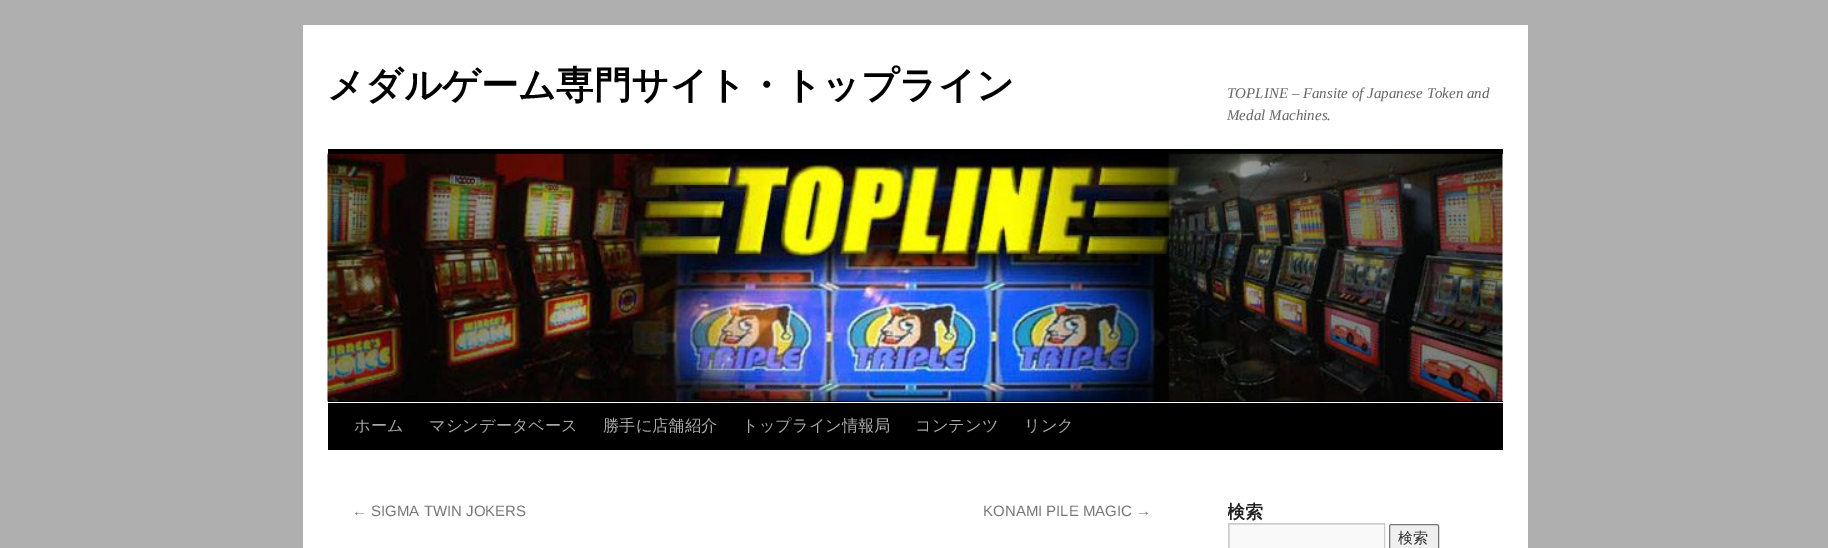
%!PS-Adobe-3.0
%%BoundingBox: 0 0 1828 548
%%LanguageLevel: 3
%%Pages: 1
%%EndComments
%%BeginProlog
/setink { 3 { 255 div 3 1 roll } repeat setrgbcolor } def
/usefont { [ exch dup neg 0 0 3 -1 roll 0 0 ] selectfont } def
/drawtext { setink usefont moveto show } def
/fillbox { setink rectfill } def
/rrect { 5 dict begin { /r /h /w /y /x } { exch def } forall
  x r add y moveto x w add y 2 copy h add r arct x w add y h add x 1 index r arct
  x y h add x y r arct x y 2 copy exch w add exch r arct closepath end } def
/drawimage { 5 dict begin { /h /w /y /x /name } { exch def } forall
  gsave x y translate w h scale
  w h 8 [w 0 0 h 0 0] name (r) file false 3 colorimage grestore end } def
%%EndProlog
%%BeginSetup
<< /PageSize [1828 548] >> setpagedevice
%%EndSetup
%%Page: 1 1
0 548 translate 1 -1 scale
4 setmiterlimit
0 0 1828 548 175 175 175 fillbox
303 25 1225 523 255 255 255 fillbox
(メダルゲーム専門サイト・トップライン) 327 98 /WenQuanYiZenHei-Bold 37.5 0 0 0 drawtext
(TOPLINE – Fansite of Japanese Token and) 1227 98 /LiberationSerif-Italic 15 102 102 102 drawtext
(Medal Machines.) 1227 120 /LiberationSerif-Italic 15 102 102 102 drawtext
328 149 1175 5 0 0 0 fillbox
328 401 1175 1 0 0 0 fillbox
(assets/img1.rgb) 327 153 1176 249 drawimage
328 403 1175 47 0 0 0 fillbox
(ホーム) 354 431 /WenQuanYiZenHei-Medium 16.25 170 170 170 drawtext
(マシンデータベース) 429 431 /WenQuanYiZenHei-Medium 16.25 170 170 170 drawtext
(勝手に店舗紹介) 603 431 /WenQuanYiZenHei-Medium 16.25 170 170 170 drawtext
(トップライン情報局) 742 431 /WenQuanYiZenHei-Medium 16.25 170 170 170 drawtext
(コンテンツ) 915 431 /WenQuanYiZenHei-Medium 16.25 170 170 170 drawtext
(リンク) 1024 431 /WenQuanYiZenHei-Medium 16.25 170 170 170 drawtext
(← SIGMA TWIN JOKERS) 352 516 /LiberationSans-Regular 15 119 119 119 drawtext
(KONAMI PILE MAGIC →) 983 516 /LiberationSans-Regular 15 119 119 119 drawtext
gsave
1228 500 275 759 rectclip
(検索) 1227 518 /WenQuanYiZenHei-Bold 18 34 34 34 drawtext
grestore
1230 525 154 23 249 249 249 fillbox
gsave
1229 524 155 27 rectclip
224 224 224 setink
1105 400 moveto 1508 400 lineto 1508 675 lineto 1105 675 lineto closepath 1230 525 moveto 1385 525 lineto 1385 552 lineto 1230 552 lineto closepath eofill
grestore
204 204 204 setink
1228.5 523.5 156 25 rectstroke
239 239 239 setink
1389.5 524.5 49 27 2 rrect gsave fill grestore
118 118 118 setink
stroke
(検索) 1398 543 /WenQuanYiZenHei-Medium 15 51 51 51 drawtext
showpage
%%EOF
